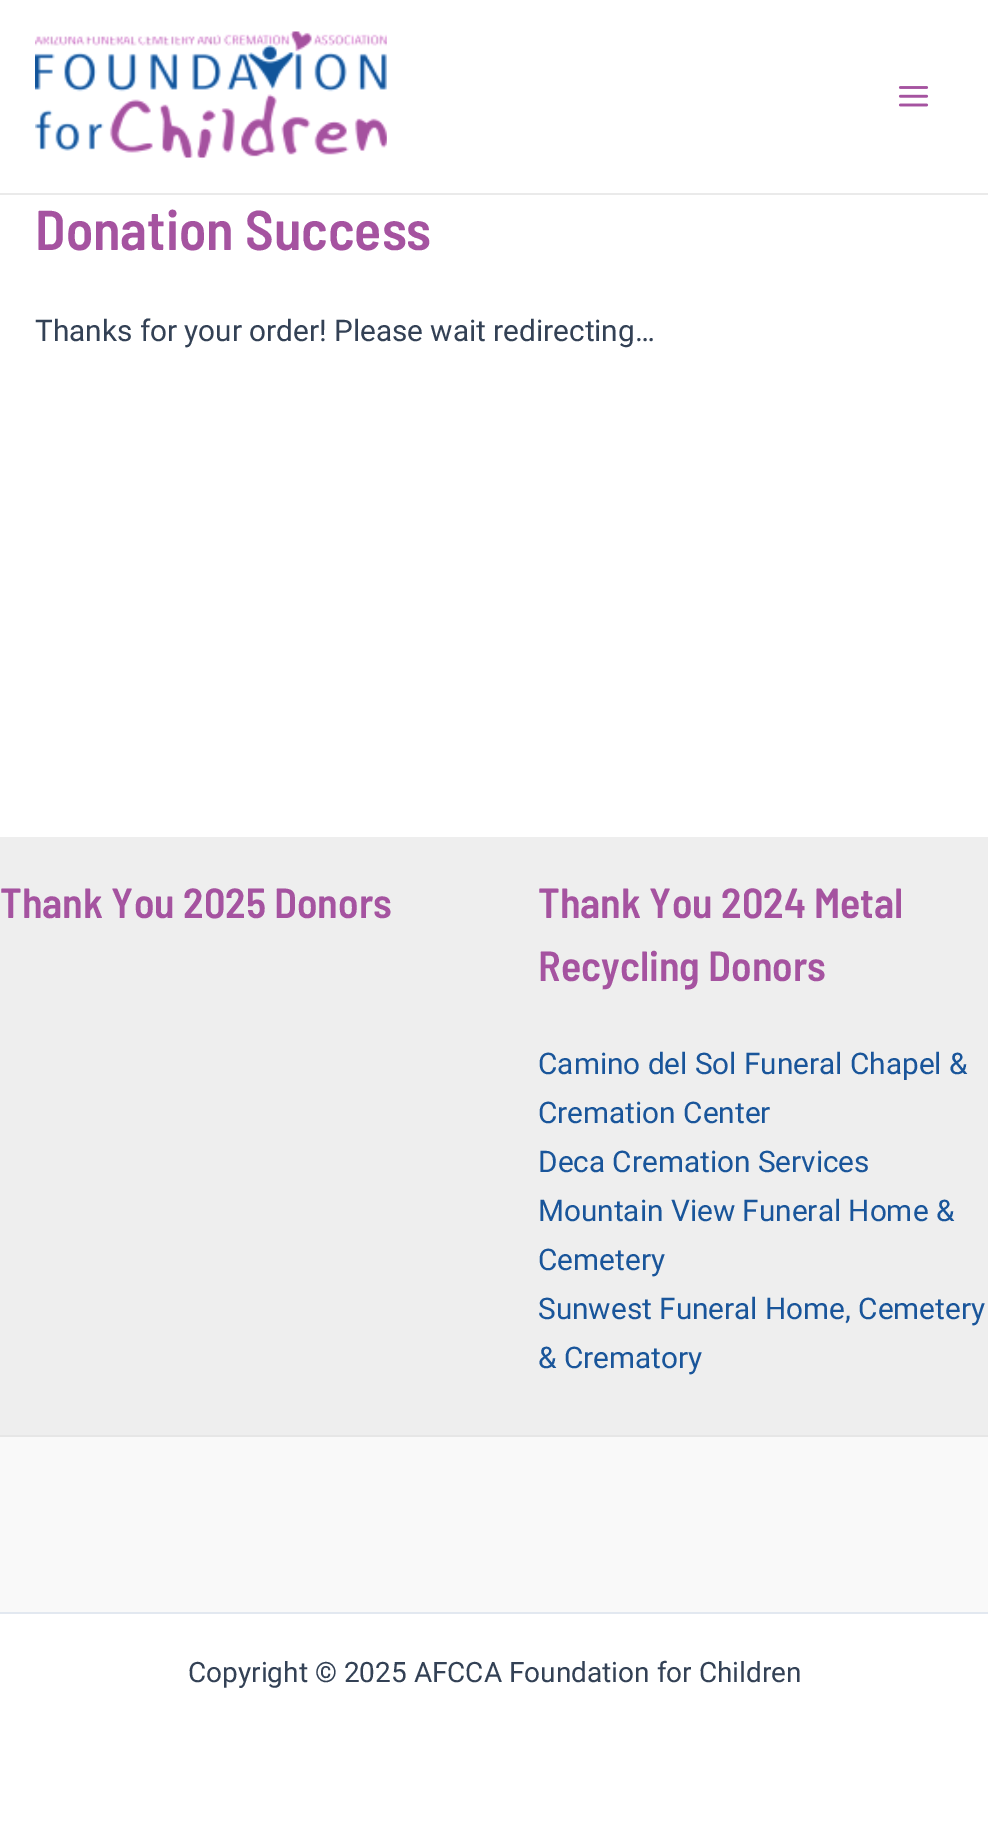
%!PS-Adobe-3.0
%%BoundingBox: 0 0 988 1823
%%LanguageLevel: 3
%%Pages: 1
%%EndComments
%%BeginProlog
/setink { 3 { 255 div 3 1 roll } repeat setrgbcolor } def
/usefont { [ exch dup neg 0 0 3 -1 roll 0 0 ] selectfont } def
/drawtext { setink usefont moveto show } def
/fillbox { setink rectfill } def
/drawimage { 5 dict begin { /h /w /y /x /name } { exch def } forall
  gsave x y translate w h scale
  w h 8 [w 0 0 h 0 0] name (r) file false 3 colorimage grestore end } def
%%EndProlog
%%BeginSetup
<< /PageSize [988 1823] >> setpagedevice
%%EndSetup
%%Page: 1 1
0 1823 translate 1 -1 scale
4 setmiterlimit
0 0 988 1823 255 255 255 fillbox
0 193 988 2 234 234 234 fillbox
(assets/img1.rgb) 35 31 352 129 drawimage
(assets/img2.rgb) 898 86 31 21 drawimage
(Donation Success) 35 250 /BarlowSemiCondensed-SemiBold 56 165 83 160 drawtext
(Thanks for your order! Please wait redirecting…) 35 341 /Roboto-Regular 29.75 51 65 85 drawtext
0 837 988 598 238 238 238 fillbox
(Thank You 2025 Donors) 0 918 /BarlowSemiCondensed-SemiBold 42 165 83 160 drawtext
(Thank You 2024 Metal) 538 918 /BarlowSemiCondensed-SemiBold 42 165 83 160 drawtext
(Recycling Donors) 538 981 /BarlowSemiCondensed-SemiBold 42 165 83 160 drawtext
(Camino del Sol Funeral Chapel &) 538 1074 /Roboto-Regular 29.75 25 85 154 drawtext
(Cremation Center) 538 1123 /Roboto-Regular 29.75 25 85 154 drawtext
(Deca Cremation Services) 538 1172 /Roboto-Regular 29.75 25 85 154 drawtext
(Mountain View Funeral Home &) 538 1221 /Roboto-Regular 29.75 25 85 154 drawtext
(Cemetery) 538 1270 /Roboto-Regular 29.75 25 85 154 drawtext
(Sunwest Funeral Home, Cemetery) 538 1319 /Roboto-Regular 29.75 25 85 154 drawtext
(& Crematory) 538 1368 /Roboto-Regular 29.75 25 85 154 drawtext
0 1437 988 175 249 249 249 fillbox
0 1435 988 2 230 230 230 fillbox
0 1612 988 2 226 232 240 fillbox
(Copyright © 2025 AFCCA Foundation for Children) 188 1682 /Roboto-Regular 28 51 65 85 drawtext
showpage
%%EOF
